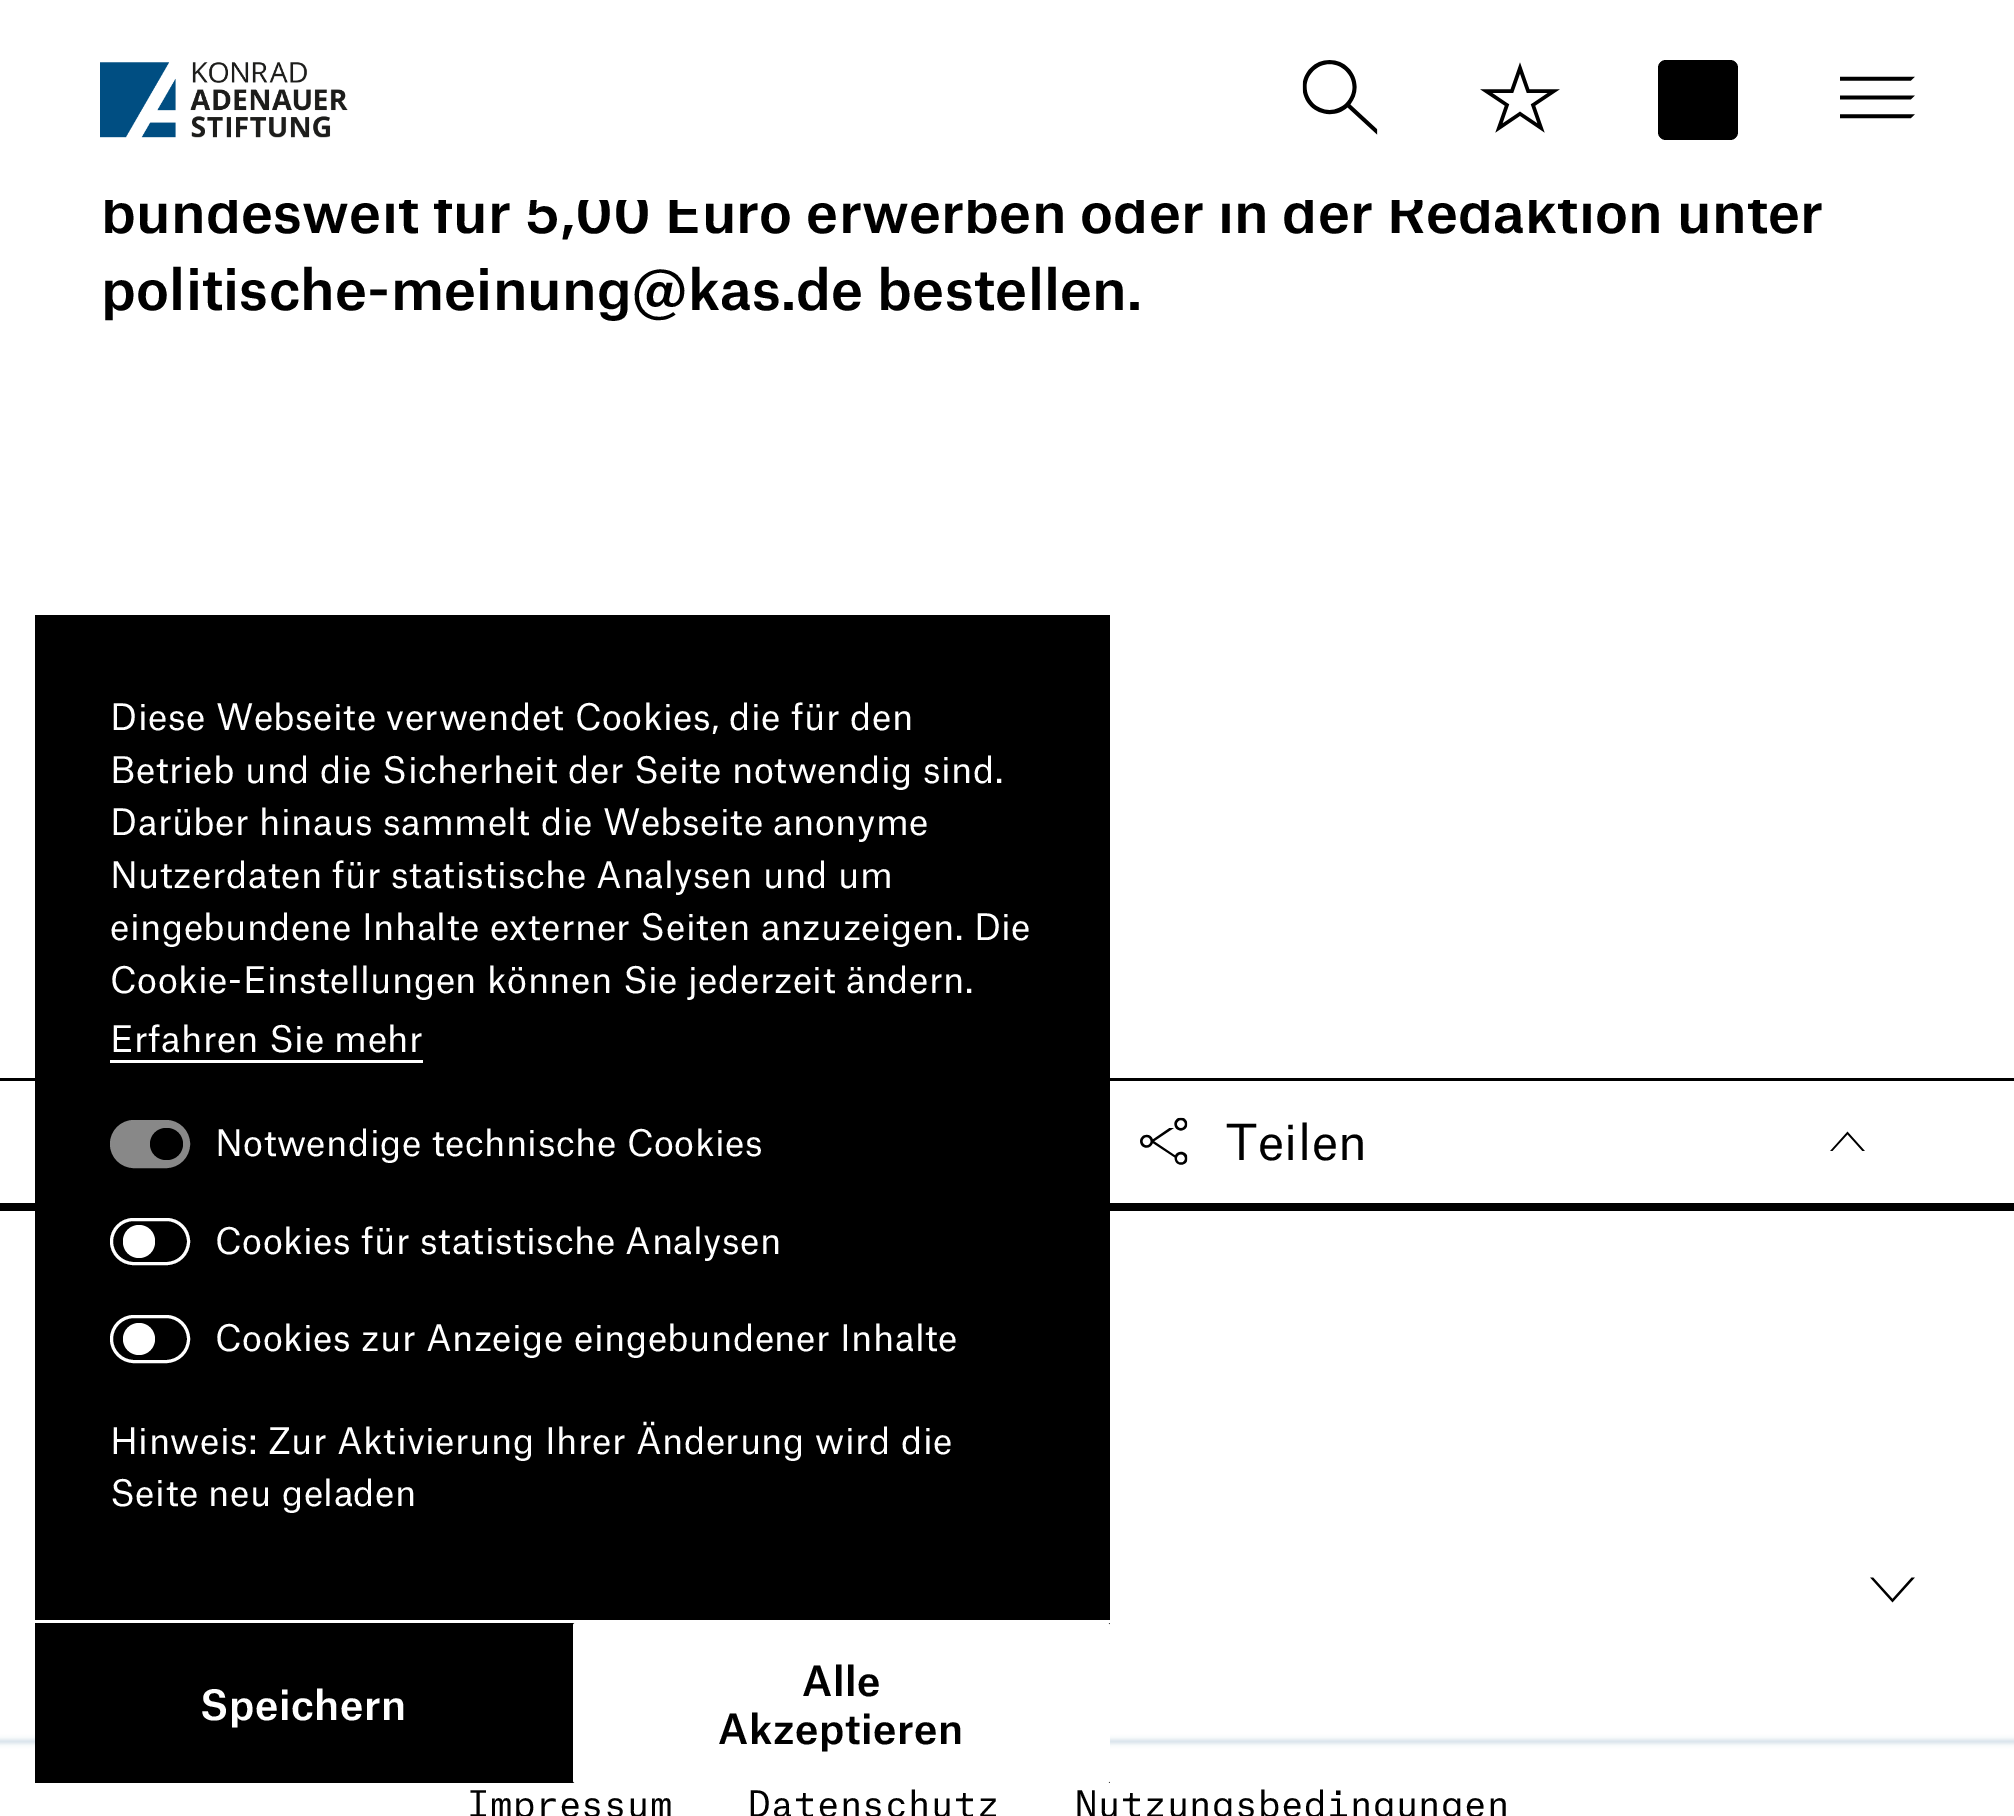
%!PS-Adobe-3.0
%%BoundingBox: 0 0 2014 1816
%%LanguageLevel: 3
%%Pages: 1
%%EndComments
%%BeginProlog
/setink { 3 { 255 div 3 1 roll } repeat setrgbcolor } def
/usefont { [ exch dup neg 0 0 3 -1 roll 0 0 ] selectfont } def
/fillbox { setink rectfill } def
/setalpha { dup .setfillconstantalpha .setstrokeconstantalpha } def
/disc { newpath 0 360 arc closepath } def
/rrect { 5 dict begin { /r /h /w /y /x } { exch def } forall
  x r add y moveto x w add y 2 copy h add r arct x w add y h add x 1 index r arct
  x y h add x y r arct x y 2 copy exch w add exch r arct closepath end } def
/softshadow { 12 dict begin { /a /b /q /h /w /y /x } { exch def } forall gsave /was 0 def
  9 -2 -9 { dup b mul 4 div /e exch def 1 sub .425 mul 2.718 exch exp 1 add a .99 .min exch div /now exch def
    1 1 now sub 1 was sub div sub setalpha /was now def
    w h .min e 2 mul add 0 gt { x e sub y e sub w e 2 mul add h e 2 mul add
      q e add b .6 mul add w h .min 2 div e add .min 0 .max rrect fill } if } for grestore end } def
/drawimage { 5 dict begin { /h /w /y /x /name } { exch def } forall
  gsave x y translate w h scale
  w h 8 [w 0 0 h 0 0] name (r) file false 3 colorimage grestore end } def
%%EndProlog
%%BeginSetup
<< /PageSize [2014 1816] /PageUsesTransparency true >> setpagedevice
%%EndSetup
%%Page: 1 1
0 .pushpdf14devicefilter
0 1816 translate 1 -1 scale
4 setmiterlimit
0 0 2014 1816 255 255 255 fillbox
/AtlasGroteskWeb-Medium 55 usefont
0 0 0 setink
101 233 moveto 0.25 0 (bundesweit für 5,00 Euro erwerben oder in der Redaktion unter) ashow
104 189 1656 11 255 255 255 fillbox
(assets/img1.rgb) 100 62 248 76 drawimage
(assets/img2.rgb) 1302 60 76 75 drawimage
(assets/img3.rgb) 1480 62 80 71 drawimage
0 0 0 setink
1658 60 80 80 8 rrect fill
(assets/img4.rgb) 1840 76 75 43 drawimage
101 310 moveto 0.25 0 (politische-meinung@kas.de bestellen.) ashow
0 1078 2014 3 0 0 0 fillbox
0 1203 2014 8 0 0 0 fillbox
(assets/img5.rgb) 1140 1117 48 48 drawimage
/AtlasGroteskWeb-Regular 47.5 usefont
1226 1160 moveto 0.5 0 (Teilen) ashow
(assets/img6.rgb) 1830 1131 35 20 drawimage
(assets/img7.rgb) 1870 1577 45 26 drawimage
204 218 230 setink
-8 1740 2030 3 0 2.5 1 softshadow
/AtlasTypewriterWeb-Regular 35 usefont
0 0 0 setink
467 1817 moveto 0.5 0 (Impressum) ashow
748 1817 moveto 0.5 0 (Datenschutz) ashow
1075 1817 moveto 0.5 0 (Nutzungsbedingungen) ashow
35 615 1075 1168 0 0 0 fillbox
/AtlasGroteskWeb-Regular 35 usefont
255 255 255 setink
110 730 moveto 0.5 0 (Diese Webseite verwendet Cookies, die für den) ashow
110 783 moveto 0.5 0 (Betrieb und die Sicherheit der Seite notwendig sind.) ashow
110 835 moveto 0.5 0 (Darüber hinaus sammelt die Webseite anonyme) ashow
110 888 moveto 0.5 0 (Nutzerdaten für statistische Analysen und um) ashow
110 940 moveto 0.5 0 (eingebundene Inhalte externer Seiten anzuzeigen. Die) ashow
110 993 moveto 0.5 0 (Cookie-Einstellungen können Sie jederzeit ändern.) ashow
110 1052 moveto 0.5 0 (Erfahren Sie mehr) ashow
110 1060 313 3 255 255 255 fillbox
136 136 136 setink
111.5 1121.5 77 45 22.5 rrect gsave fill grestore
3 setlinewidth
stroke
0 0 0 setink
150 1128 33 32 16 rrect fill
255 255 255 setink
215 1156 moveto 0.5 0 (Notwendige technische Cookies) ashow
111.5 1219.5 77 44 22 rrect stroke
123 1225 32 33 16 rrect fill
215 1254 moveto 0.5 0 (Cookies für statistische Analysen) ashow
111.5 1316.5 77 45 22.5 rrect stroke
139 1339 16 disc fill
215 1351 moveto 0.5 0 (Cookies zur Anzeige eingebundener Inhalte) ashow
110 1454 moveto 0.5 0 (Hinweis: Zur Aktivierung Ihrer Änderung wird die) ashow
110 1506 moveto 0.5 0 (Seite neu geladen) ashow
35 1620 1075 3 255 255 255 fillbox
/AtlasGroteskWeb-Medium 40 usefont
200 1720 moveto 0.6 0 (Speichern) ashow
573 1623 537 160 2.5 rrect fill
0 0 0 setink
802 1696 moveto 0.6 0 (Alle) ashow
718 1744 moveto 0.6 0 (Akzeptieren) ashow
.poppdf14devicefilter showpage
%%EOF
